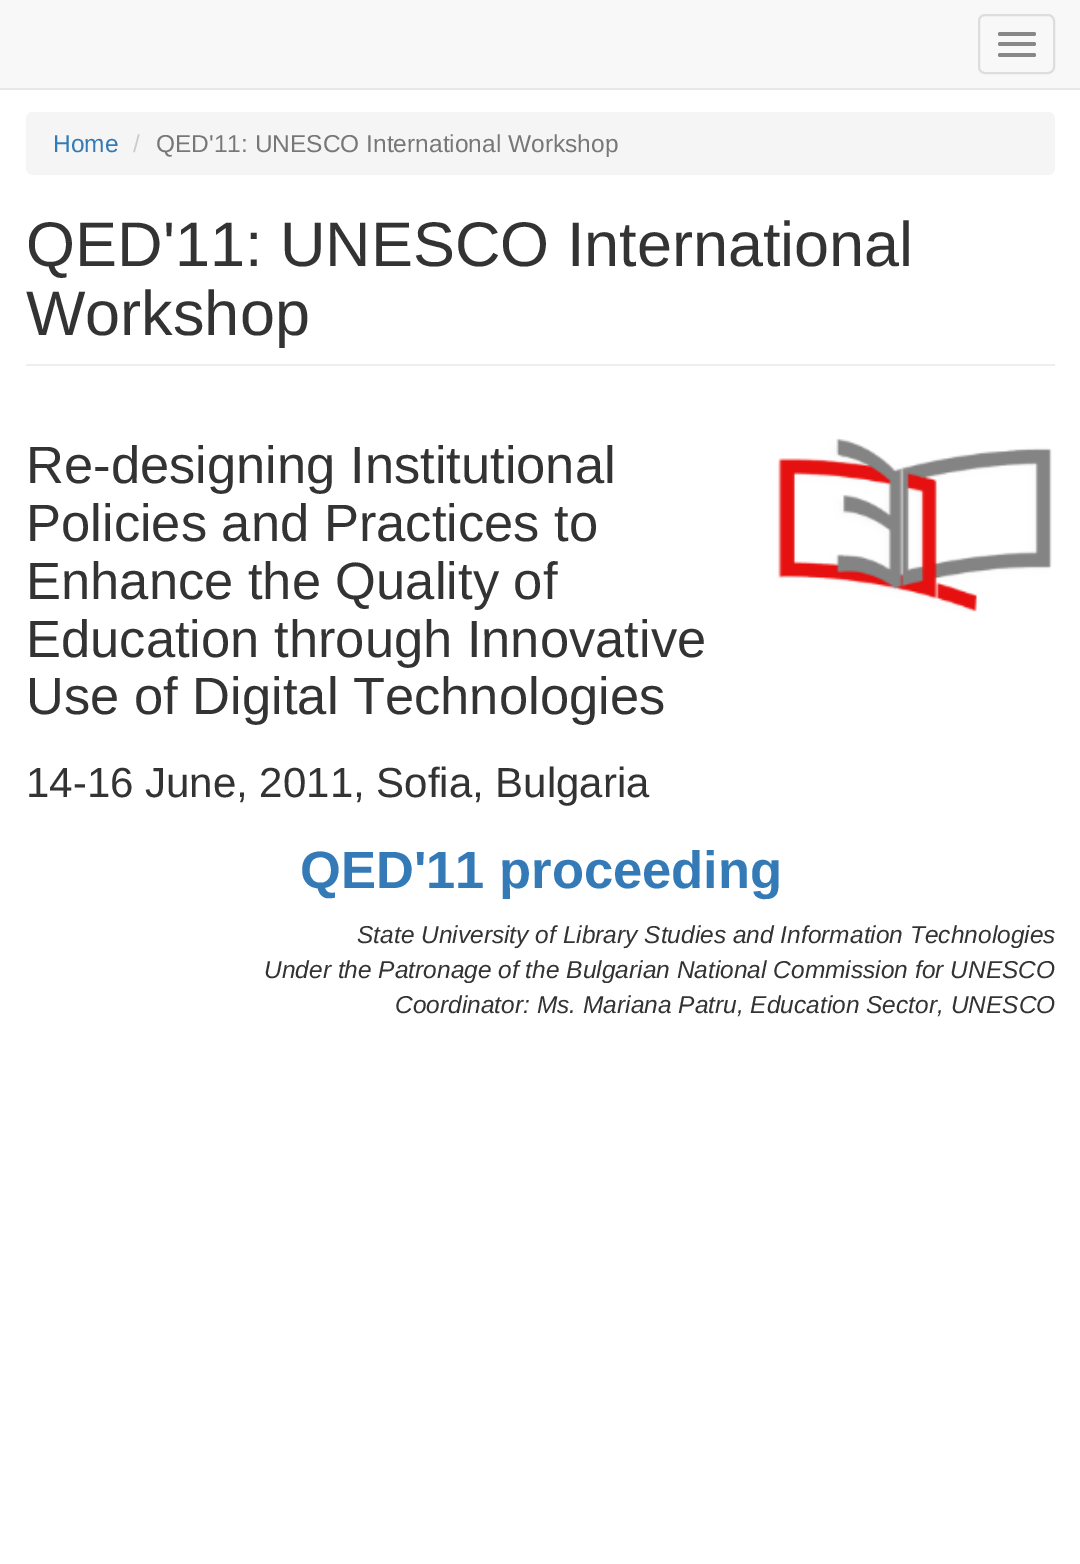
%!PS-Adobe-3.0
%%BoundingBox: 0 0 1080 1564
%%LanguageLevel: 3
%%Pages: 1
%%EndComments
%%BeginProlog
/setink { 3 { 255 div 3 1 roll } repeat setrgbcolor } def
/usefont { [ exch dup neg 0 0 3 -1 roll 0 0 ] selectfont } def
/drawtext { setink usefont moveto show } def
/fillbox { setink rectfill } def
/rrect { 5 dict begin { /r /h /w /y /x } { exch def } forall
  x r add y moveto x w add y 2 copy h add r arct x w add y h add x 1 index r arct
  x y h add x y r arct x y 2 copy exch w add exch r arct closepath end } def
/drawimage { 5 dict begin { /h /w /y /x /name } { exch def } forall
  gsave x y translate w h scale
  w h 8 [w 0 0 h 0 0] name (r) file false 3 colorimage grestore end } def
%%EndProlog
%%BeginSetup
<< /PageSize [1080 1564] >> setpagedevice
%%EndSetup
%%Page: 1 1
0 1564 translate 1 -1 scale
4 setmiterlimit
0 0 1080 1564 255 255 255 fillbox
0 0 1080 88 248 248 248 fillbox
0 88 1080 2 231 231 231 fillbox
221 221 221 setink
2 setlinewidth
979 15 75 58 6 rrect stroke
136 136 136 setink
998 32 38 4 2 rrect fill
998 42 38 4 2 rrect fill
998 53 38 4 2 rrect fill
245 245 245 setink
26 112 1029 63 7 rrect fill
(Home) 53 152 /LiberationSans-Regular 24.5 51 122 183 drawtext
(/) 133 152 /LiberationSans-Regular 24.5 204 204 204 drawtext
(QED'11: UNESCO International Workshop) 156 152 /LiberationSans-Regular 24.5 119 119 119 drawtext
26 364 1029 2 238 238 238 fillbox
(QED'11: UNESCO International) 26 266 /LiberationSans-Regular 63 51 51 51 drawtext
(Workshop) 26 335 /LiberationSans-Regular 63 51 51 51 drawtext
(Re-designing Institutional) 26 483 /LiberationSans-Regular 52.5 51 51 51 drawtext
(assets/img1.rgb) 776 438 276 174 drawimage
(Policies and Practices to) 26 541 /LiberationSans-Regular 52.5 51 51 51 drawtext
(Enhance the Quality of) 26 599 /LiberationSans-Regular 52.5 51 51 51 drawtext
(Education through Innovative) 26 657 /LiberationSans-Regular 52.5 51 51 51 drawtext
(Use of Digital Technologies) 26 714 /LiberationSans-Regular 52.5 51 51 51 drawtext
(14-16 June, 2011, Sofia, Bulgaria) 26 797 /LiberationSans-Regular 42 51 51 51 drawtext
(QED'11 proceeding) 300 888 /LiberationSans-Bold 52.5 51 122 183 drawtext
(State University of Library Studies and Information Technologies) 357 943 /LiberationSans-Italic 24.5 51 51 51 drawtext
(Under the Patronage of the Bulgarian National Commission for UNESCO) 264 978 /LiberationSans-Italic 24.5 51 51 51 drawtext
(Coordinator: Ms. Mariana Patru, Education Sector, UNESCO) 395 1013 /LiberationSans-Italic 24.5 51 51 51 drawtext
showpage
%%EOF
